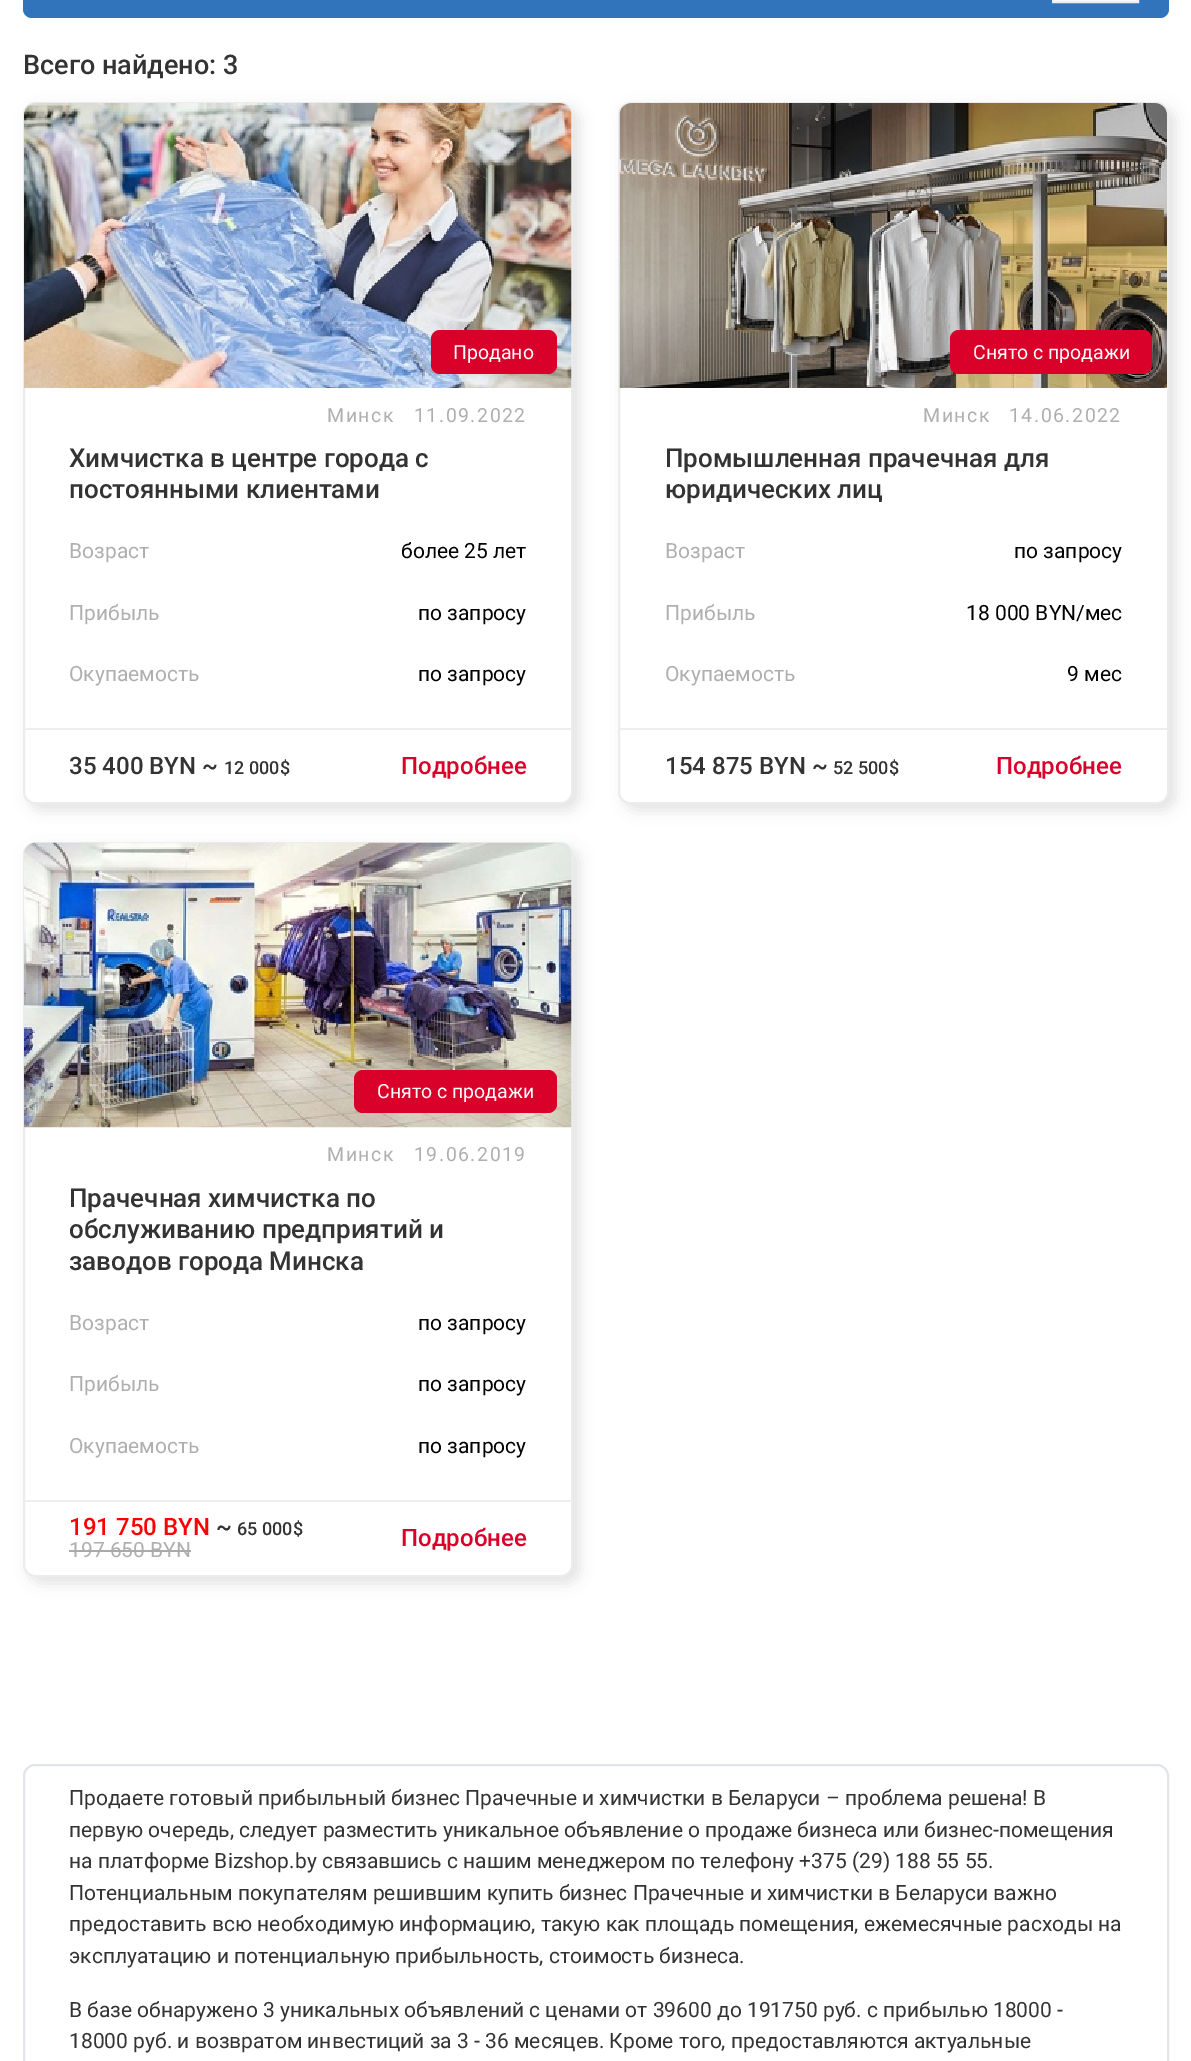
%!PS-Adobe-3.0
%%BoundingBox: 0 0 1191 2061
%%LanguageLevel: 3
%%Pages: 1
%%EndComments
%%BeginProlog
/setink { 3 { 255 div 3 1 roll } repeat setrgbcolor } def
/usefont { [ exch dup neg 0 0 3 -1 roll 0 0 ] selectfont } def
/drawtext { setink usefont moveto show } def
/fillbox { setink rectfill } def
/setalpha { dup .setfillconstantalpha .setstrokeconstantalpha } def
/rrect { 5 dict begin { /r /h /w /y /x } { exch def } forall
  x r add y moveto x w add y 2 copy h add r arct x w add y h add x 1 index r arct
  x y h add x y r arct x y 2 copy exch w add exch r arct closepath end } def
/softshadow { 12 dict begin { /a /b /q /h /w /y /x } { exch def } forall gsave /was 0 def
  9 -2 -9 { dup b mul 4 div /e exch def 1 sub .425 mul 2.718 exch exp 1 add a .99 .min exch div /now exch def
    1 1 now sub 1 was sub div sub setalpha /was now def
    w h .min e 2 mul add 0 gt { x e sub y e sub w e 2 mul add h e 2 mul add
      q e add b .6 mul add w h .min 2 div e add .min 0 .max rrect fill } if } for grestore end } def
/drawimage { 5 dict begin { /h /w /y /x /name } { exch def } forall
  gsave x y translate w h scale
  w h 8 [w 0 0 h 0 0] name (r) file false 3 colorimage grestore end } def
%%EndProlog
%%BeginSetup
<< /PageSize [1191 2061] /PageUsesTransparency true >> setpagedevice
%%EndSetup
%%Page: 1 1
0 .pushpdf14devicefilter
0 2061 translate 1 -1 scale
4 setmiterlimit
0 0 1191 2061 255 255 255 fillbox
49 116 187 setink
23 -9 moveto 1169 -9 lineto 1169 9 lineto 1169 14 1165 18 1160 18 curveto 32 18 lineto 27 18 23 14 23 9 curveto closepath fill
255 255 255 setink
1053 -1 moveto 1138 -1 lineto 1138 2 lineto 1053 2 lineto closepath gsave fill grestore
238 238 238 setink
2 setlinewidth
stroke
(Всего найдено: 3) 23 74 /Roboto-Medium 27 51 51 51 drawtext
103 103 103 setink
29 108 550 702 12 7.5 0.2 softshadow
255 255 255 setink
24 103 548 700 11 rrect gsave fill grestore
236 236 238 setink
stroke
(assets/img1.rgb) 24 103 548 285 drawimage
217 0 41 setink
431 330 126 44 9 rrect fill
(Продано) 453 359 /Roboto-Regular 19.5 255 255 255 drawtext
175 175 175 setink
327 422 moveto 1.5 0 (Минск) ashow
414 422 moveto 1.5 0 (11.09.2022) ashow
(Химчистка в центре города с) 69 467 /Roboto-Medium 26 51 51 51 drawtext
(постоянными клиентами) 69 498 /Roboto-Medium 26 51 51 51 drawtext
(Возраст) 69 558 /Roboto-Regular 21 175 175 175 drawtext
(более 25 лет) 401 558 /Roboto-Regular 21 0 0 0 drawtext
(Прибыль) 69 620 /Roboto-Regular 21 175 175 175 drawtext
(по запросу) 418 620 /Roboto-Regular 21 0 0 0 drawtext
(Окупаемость) 69 681 /Roboto-Regular 21 175 175 175 drawtext
(по запросу) 418 681 /Roboto-Regular 21 0 0 0 drawtext
24 728 548 2 238 238 238 fillbox
(35 400 BYN ~) 69 774 /Roboto-Medium 24 51 51 51 drawtext
(12 000$) 224 774 /Roboto-Medium 18 51 51 51 drawtext
(Подробнее) 401 774 /Roboto-Medium 24 217 0 41 drawtext
103 103 103 setink
624 108 551 702 12 7.5 0.2 softshadow
255 255 255 setink
619 103 549 700 11 rrect gsave fill grestore
236 236 238 setink
stroke
(assets/img2.rgb) 619 103 548 285 drawimage
217 0 41 setink
950 330 202 44 9 rrect fill
(Снято с продажи) 973 359 /Roboto-Regular 19.5 255 255 255 drawtext
175 175 175 setink
923 422 moveto 1.5 0 (Минск) ashow
1009 422 moveto 1.5 0 (14.06.2022) ashow
(Промышленная прачечная для) 665 467 /Roboto-Medium 26 51 51 51 drawtext
(юридических лиц) 665 498 /Roboto-Medium 26 51 51 51 drawtext
(Возраст) 665 558 /Roboto-Regular 21 175 175 175 drawtext
(по запросу) 1014 558 /Roboto-Regular 21 0 0 0 drawtext
(Прибыль) 665 620 /Roboto-Regular 21 175 175 175 drawtext
(18 000 BYN/мес) 966 620 /Roboto-Regular 21 0 0 0 drawtext
(Окупаемость) 665 681 /Roboto-Regular 21 175 175 175 drawtext
(9 мес) 1067 681 /Roboto-Regular 21 0 0 0 drawtext
620 728 547 2 238 238 238 fillbox
(154 875 BYN ~) 665 774 /Roboto-Medium 24 51 51 51 drawtext
(52 500$) 833 774 /Roboto-Medium 18 51 51 51 drawtext
(Подробнее) 996 774 /Roboto-Medium 24 217 0 41 drawtext
103 103 103 setink
29 848 550 735 12 7.5 0.2 softshadow
255 255 255 setink
24 843 548 733 11 rrect gsave fill grestore
236 236 238 setink
stroke
(assets/img3.rgb) 24 842 548 286 drawimage
217 0 41 setink
354 1070 203 43 9 rrect fill
(Снято с продажи) 377 1098 /Roboto-Regular 19.5 255 255 255 drawtext
175 175 175 setink
327 1161 moveto 1.5 0 (Минск) ashow
414 1161 moveto 1.5 0 (19.06.2019) ashow
(Прачечная химчистка по) 69 1207 /Roboto-Medium 26 51 51 51 drawtext
(обслуживанию предприятий и) 69 1238 /Roboto-Medium 26 51 51 51 drawtext
(заводов города Минска) 69 1270 /Roboto-Medium 26 51 51 51 drawtext
(Возраст) 69 1330 /Roboto-Regular 21 175 175 175 drawtext
(по запросу) 418 1330 /Roboto-Regular 21 0 0 0 drawtext
(Прибыль) 69 1391 /Roboto-Regular 21 175 175 175 drawtext
(по запросу) 418 1391 /Roboto-Regular 21 0 0 0 drawtext
(Окупаемость) 69 1453 /Roboto-Regular 21 175 175 175 drawtext
(по запросу) 418 1453 /Roboto-Regular 21 0 0 0 drawtext
24 1500 548 2 238 238 238 fillbox
(191 750 BYN) 69 1535 /Roboto-Medium 24 255 0 0 drawtext
(~) 216 1535 /Roboto-Medium 24 51 51 51 drawtext
(65 000$) 237 1535 /Roboto-Medium 18 51 51 51 drawtext
(197 650 BYN) 69 1557 /Roboto-Regular 21 175 175 175 drawtext
69 1550 122 2 170 170 170 fillbox
(Подробнее) 401 1546 /Roboto-Medium 24 217 0 41 drawtext
225 229 233 setink
24 1765 1144 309 11 rrect stroke
(Продаете готовый прибыльный бизнес Прачечные и химчистки в Беларуси – проблема решена! В) 69 1805 /Roboto-Regular 21 51 51 51 drawtext
(первую очередь, следует разместить уникальное объявление о продаже бизнеса или бизнес-помещения) 69 1837 /Roboto-Regular 21 51 51 51 drawtext
(на платформе Bizshop.by связавшись с нашим менеджером по телефону +375 \(29\) 188 55 55.) 69 1868 /Roboto-Regular 21 51 51 51 drawtext
(Потенциальным покупателям решившим купить бизнес Прачечные и химчистки в Беларуси важно) 69 1900 /Roboto-Regular 21 51 51 51 drawtext
(предоставить всю необходимую информацию, такую как площадь помещения, ежемесячные расходы на) 69 1931 /Roboto-Regular 21 51 51 51 drawtext
(эксплуатацию и потенциальную прибыльность, стоимость бизнеса.) 69 1963 /Roboto-Regular 21 51 51 51 drawtext
(В базе обнаружено 3 уникальных объявлений с ценами от 39600 до 191750 руб. с прибылью 18000 -) 69 2017 /Roboto-Regular 21 51 51 51 drawtext
(18000 руб. и возвратом инвестиций за 3 - 36 месяцев. Кроме того, предоставляются актуальные) 69 2048 /Roboto-Regular 21 51 51 51 drawtext
.poppdf14devicefilter showpage
%%EOF
